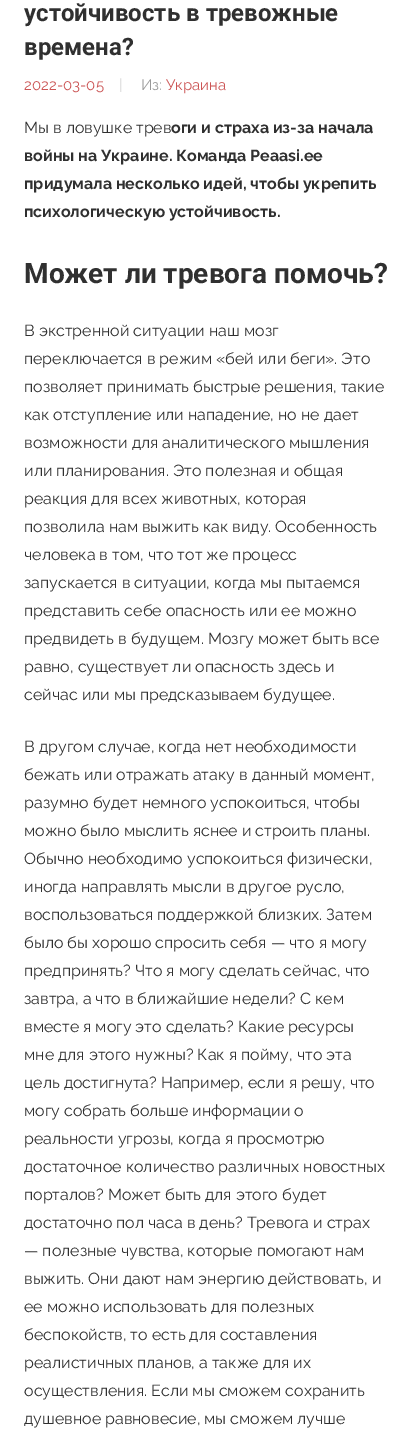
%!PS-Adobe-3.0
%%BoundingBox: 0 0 412 1447
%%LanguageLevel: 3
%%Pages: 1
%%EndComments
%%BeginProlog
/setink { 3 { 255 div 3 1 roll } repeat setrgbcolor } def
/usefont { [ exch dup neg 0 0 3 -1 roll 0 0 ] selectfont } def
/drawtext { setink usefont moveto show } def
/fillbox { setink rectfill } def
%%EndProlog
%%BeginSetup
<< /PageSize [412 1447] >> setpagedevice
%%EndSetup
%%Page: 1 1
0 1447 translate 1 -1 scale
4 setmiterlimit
0 0 412 1447 255 255 255 fillbox
(устойчивость в тревожные) 24 21 /Roboto-Bold 24 48 48 48 drawtext
(времена?) 24 55 /Roboto-Bold 24 48 48 48 drawtext
(2022-03-05) 24 90 /Raleway-Thin 15 204 85 85 drawtext
(|) 119 90 /Raleway-Thin 15 217 217 217 drawtext
(Из:) 141 90 /Raleway-Thin 15 153 153 153 drawtext
(Украина) 166 90 /Raleway-Thin 15 204 85 85 drawtext
(Мы в ловушке трев) 24 133 /Raleway-Thin 16 48 48 48 drawtext
(оги и страха из-за начала) 171 133 /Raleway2-Thin 16 48 48 48 drawtext
(войны на Украине. Команда Peaasi.ee) 24 161 /Raleway2-Thin 16 48 48 48 drawtext
(придумала несколько идей, чтобы укрепить) 24 189 /Raleway2-Thin 16 48 48 48 drawtext
(психологическую устойчивость.) 24 217 /Raleway2-Thin 16 48 48 48 drawtext
(Может ли тревога помочь?) 24 283 /Roboto-Bold 28 48 48 48 drawtext
(В экстренной ситуации наш мозг) 24 336 /Raleway-Thin 16 48 48 48 drawtext
(переключается в режим «бей или беги». Это) 24 364 /Raleway-Thin 16 48 48 48 drawtext
(позволяет принимать быстрые решения, такие) 24 392 /Raleway-Thin 16 48 48 48 drawtext
(как отступление или нападение, но не дает) 24 420 /Raleway-Thin 16 48 48 48 drawtext
(возможности для аналитического мышления) 24 448 /Raleway-Thin 16 48 48 48 drawtext
(или планирования. Это полезная и общая) 24 476 /Raleway-Thin 16 48 48 48 drawtext
(реакция для всех животных, которая) 24 504 /Raleway-Thin 16 48 48 48 drawtext
(позволила нам выжить как виду. Особенность) 24 532 /Raleway-Thin 16 48 48 48 drawtext
(человека в том, что тот же процесс) 24 560 /Raleway-Thin 16 48 48 48 drawtext
(запускается в ситуации, когда мы пытаемся) 24 588 /Raleway-Thin 16 48 48 48 drawtext
(представить себе опасность или ее можно) 24 616 /Raleway-Thin 16 48 48 48 drawtext
(предвидеть в будущем. Мозгу может быть все) 24 644 /Raleway-Thin 16 48 48 48 drawtext
(равно, существует ли опасность здесь и) 24 672 /Raleway-Thin 16 48 48 48 drawtext
(сейчас или мы предсказываем будущее.) 24 700 /Raleway-Thin 16 48 48 48 drawtext
(В другом случае, когда нет необходимости) 24 752 /Raleway-Thin 16 48 48 48 drawtext
(бежать или отражать атаку в данный момент,) 24 780 /Raleway-Thin 16 48 48 48 drawtext
(разумно будет немного успокоиться, чтобы) 24 808 /Raleway-Thin 16 48 48 48 drawtext
(можно было мыслить яснее и строить планы.) 24 836 /Raleway-Thin 16 48 48 48 drawtext
(Обычно необходимо успокоиться физически,) 24 864 /Raleway-Thin 16 48 48 48 drawtext
(иногда направлять мысли в другое русло,) 24 892 /Raleway-Thin 16 48 48 48 drawtext
(воспользоваться поддержкой близких. Затем) 24 920 /Raleway-Thin 16 48 48 48 drawtext
(было бы хорошо спросить себя — что я могу) 24 948 /Raleway-Thin 16 48 48 48 drawtext
(предпринять? Что я могу сделать сейчас, что) 24 976 /Raleway-Thin 16 48 48 48 drawtext
(завтра, а что в ближайшие недели? С кем) 24 1004 /Raleway-Thin 16 48 48 48 drawtext
(вместе я могу это сделать? Какие ресурсы) 24 1032 /Raleway-Thin 16 48 48 48 drawtext
(мне для этого нужны? Как я пойму, что эта) 24 1060 /Raleway-Thin 16 48 48 48 drawtext
(цель достигнута? Например, если я решу, что) 24 1088 /Raleway-Thin 16 48 48 48 drawtext
(могу собрать больше информации о) 24 1116 /Raleway-Thin 16 48 48 48 drawtext
(реальности угрозы, когда я просмотрю) 24 1144 /Raleway-Thin 16 48 48 48 drawtext
(достаточное количество различных новостных) 24 1172 /Raleway-Thin 16 48 48 48 drawtext
(порталов? Может быть для этого будет) 24 1200 /Raleway-Thin 16 48 48 48 drawtext
(достаточно пол часа в день? Тревога и страх) 24 1228 /Raleway-Thin 16 48 48 48 drawtext
(— полезные чувства, которые помогают нам) 24 1256 /Raleway-Thin 16 48 48 48 drawtext
(выжить. Они дают нам энергию действовать, и) 24 1284 /Raleway-Thin 16 48 48 48 drawtext
(ее можно использовать для полезных) 24 1312 /Raleway-Thin 16 48 48 48 drawtext
(беспокойств, то есть для составления) 24 1340 /Raleway-Thin 16 48 48 48 drawtext
(реалистичных планов, а также для их) 24 1368 /Raleway-Thin 16 48 48 48 drawtext
(осуществления. Если мы сможем сохранить) 24 1396 /Raleway-Thin 16 48 48 48 drawtext
(душевное равновесие, мы сможем лучше) 24 1424 /Raleway-Thin 16 48 48 48 drawtext
showpage
%%EOF
